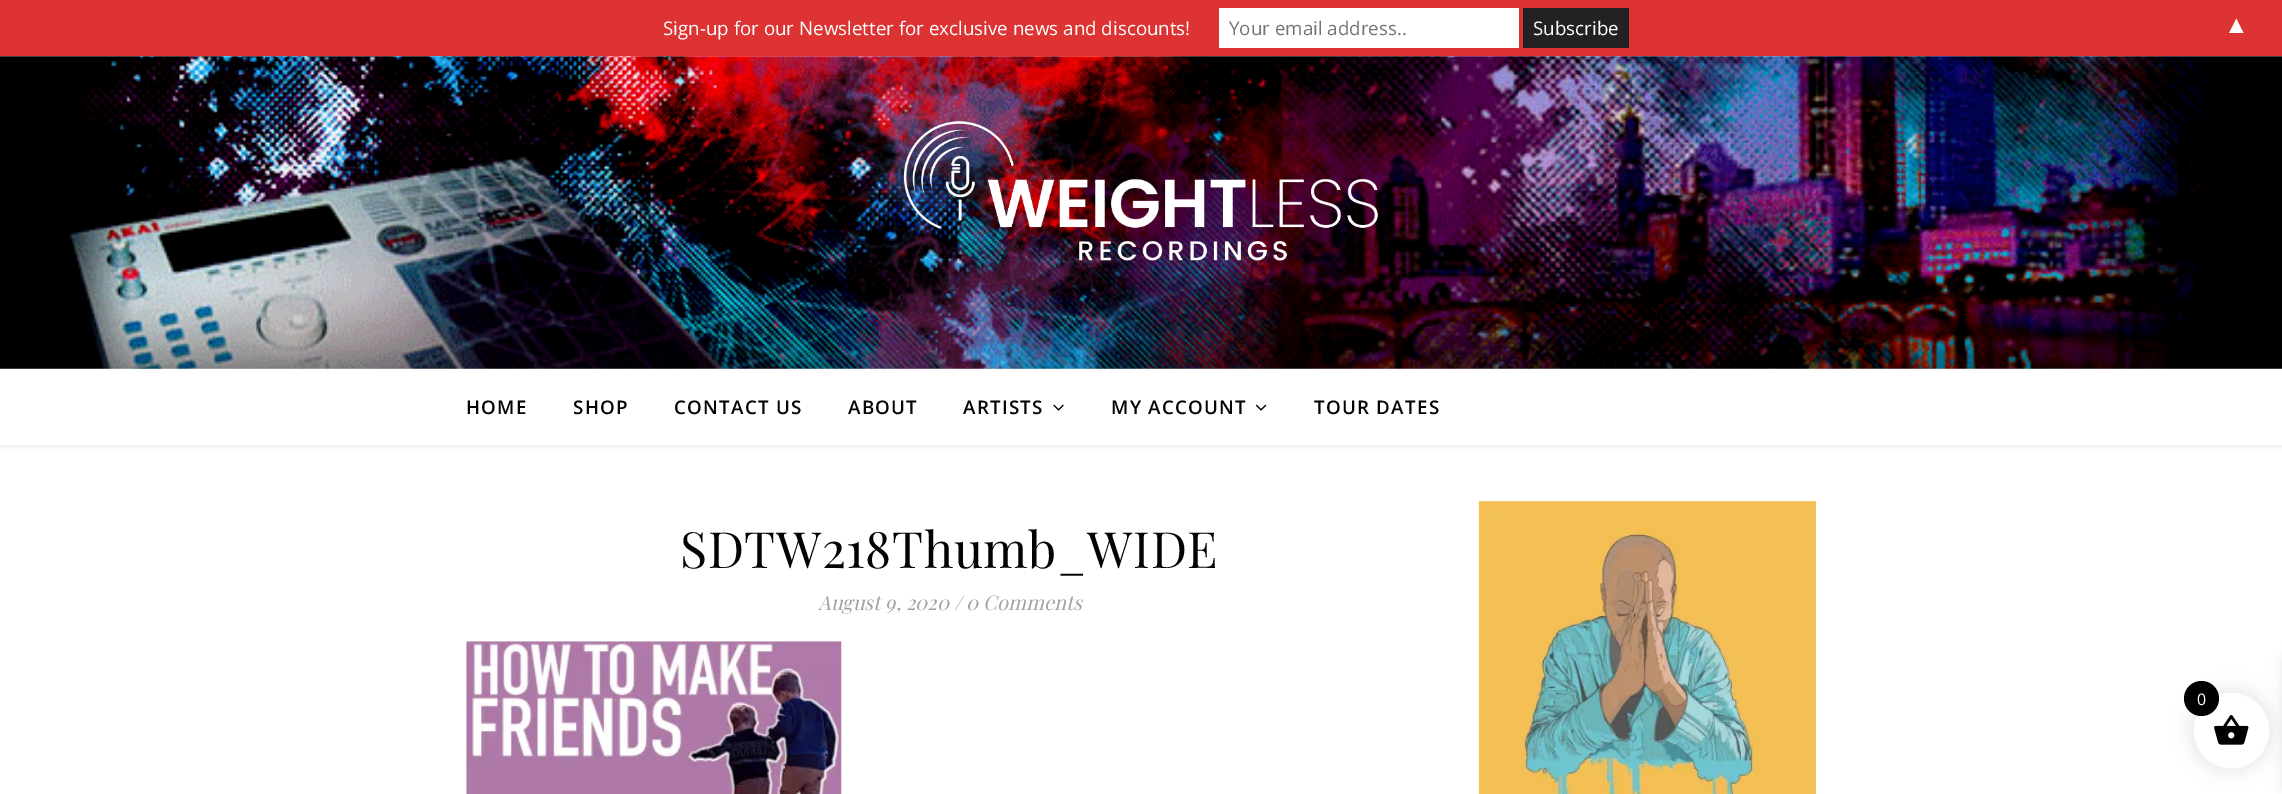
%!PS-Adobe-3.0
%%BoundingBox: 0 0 2282 794
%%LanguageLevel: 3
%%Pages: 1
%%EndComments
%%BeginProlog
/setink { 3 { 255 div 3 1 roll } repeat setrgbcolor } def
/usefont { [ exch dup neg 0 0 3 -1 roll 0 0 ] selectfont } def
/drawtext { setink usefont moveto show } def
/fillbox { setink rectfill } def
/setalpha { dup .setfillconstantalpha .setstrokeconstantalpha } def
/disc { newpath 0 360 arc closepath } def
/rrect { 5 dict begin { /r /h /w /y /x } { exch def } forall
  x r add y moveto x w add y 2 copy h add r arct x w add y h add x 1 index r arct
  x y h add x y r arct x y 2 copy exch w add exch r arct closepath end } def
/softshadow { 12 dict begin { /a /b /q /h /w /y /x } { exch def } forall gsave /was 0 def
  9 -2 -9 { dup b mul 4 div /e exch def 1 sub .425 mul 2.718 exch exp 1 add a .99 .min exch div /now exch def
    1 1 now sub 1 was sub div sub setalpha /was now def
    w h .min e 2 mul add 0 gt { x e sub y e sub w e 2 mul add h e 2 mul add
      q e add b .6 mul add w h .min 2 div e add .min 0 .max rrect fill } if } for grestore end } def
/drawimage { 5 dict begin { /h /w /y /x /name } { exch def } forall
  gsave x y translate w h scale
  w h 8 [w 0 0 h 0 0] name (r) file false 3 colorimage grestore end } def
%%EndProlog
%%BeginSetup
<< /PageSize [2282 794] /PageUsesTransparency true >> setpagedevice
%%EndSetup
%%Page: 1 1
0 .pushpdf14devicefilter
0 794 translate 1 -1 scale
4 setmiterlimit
0 0 2282 794 255 255 255 fillbox
0 0 2282 56 221 51 51 fillbox
(Sign-up for our Newsletter for exclusive news and discounts!) 663 35 /OpenSans-Regular 18.75 255 255 255 drawtext
1219 8 300 40 255 255 255 fillbox
(Your email address..) 1229 35 /OpenSans-Regular 18.75 117 117 117 drawtext
1523 8 106 40 34 34 34 fillbox
(Subscribe) 1533 35 /OpenSans-Regular 18.75 255 255 255 drawtext
(▲) 2224 33 /LiberationSerif-Regular 25 255 255 255 drawtext
(assets/img1.rgb) 0 56 2282 313 drawimage
(assets/img2.rgb) 903 121 475 140 drawimage
gsave
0 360 moveto 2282 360 lineto 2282 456 lineto 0 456 lineto closepath 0 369 moveto 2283 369 lineto 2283 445 lineto 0 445 lineto closepath eoclip newpath
0 0 0 setink
0 370 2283 76 0 3 0.1 softshadow
grestore
/OpenSans-SemiBold 18.75 usefont
3 3 3 setink
466 414 moveto 1.25 0 (HOME) ashow
573 414 moveto 1.25 0 (SHOP) ashow
674 414 moveto 1.25 0 (CONTACT US) ashow
848 414 moveto 1.25 0 (ABOUT) ashow
963 414 moveto 1.25 0 (ARTISTS) ashow
(assets/img3.rgb) 1053 404 11 7 drawimage
1111 414 moveto 1.25 0 (MY ACCOUNT) ashow
(assets/img4.rgb) 1255 404 12 7 drawimage
1314 414 moveto 1.25 0 (TOUR DATES) ashow
/PlayfairDisplay-Regular 50 usefont
680 568 moveto 0.6 0 (SDTW218Thumb_WIDE) ashow
(August 9, 2020 / 0 Comments) 818 610 /PlayfairDisplay-Italic 20 161 161 161 drawtext
(assets/img5.rgb) 466 641 376 153 drawimage
(assets/img6.rgb) 1478 501 339 293 drawimage
0 0 0 setink
2191 690 80 80 40 9.5 0.1 softshadow
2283 659 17 130 0 6 0.1 softshadow
255 255 255 setink
2231.5 730.5 37.5 disc fill
(assets/img7.rgb) 2214 715 35 30 drawimage
0 0 0 setink
2201.5 698.5 17.5 disc fill
(0) 2197 705 /OpenSans-Regular 16 255 255 255 drawtext
.poppdf14devicefilter showpage
%%EOF
